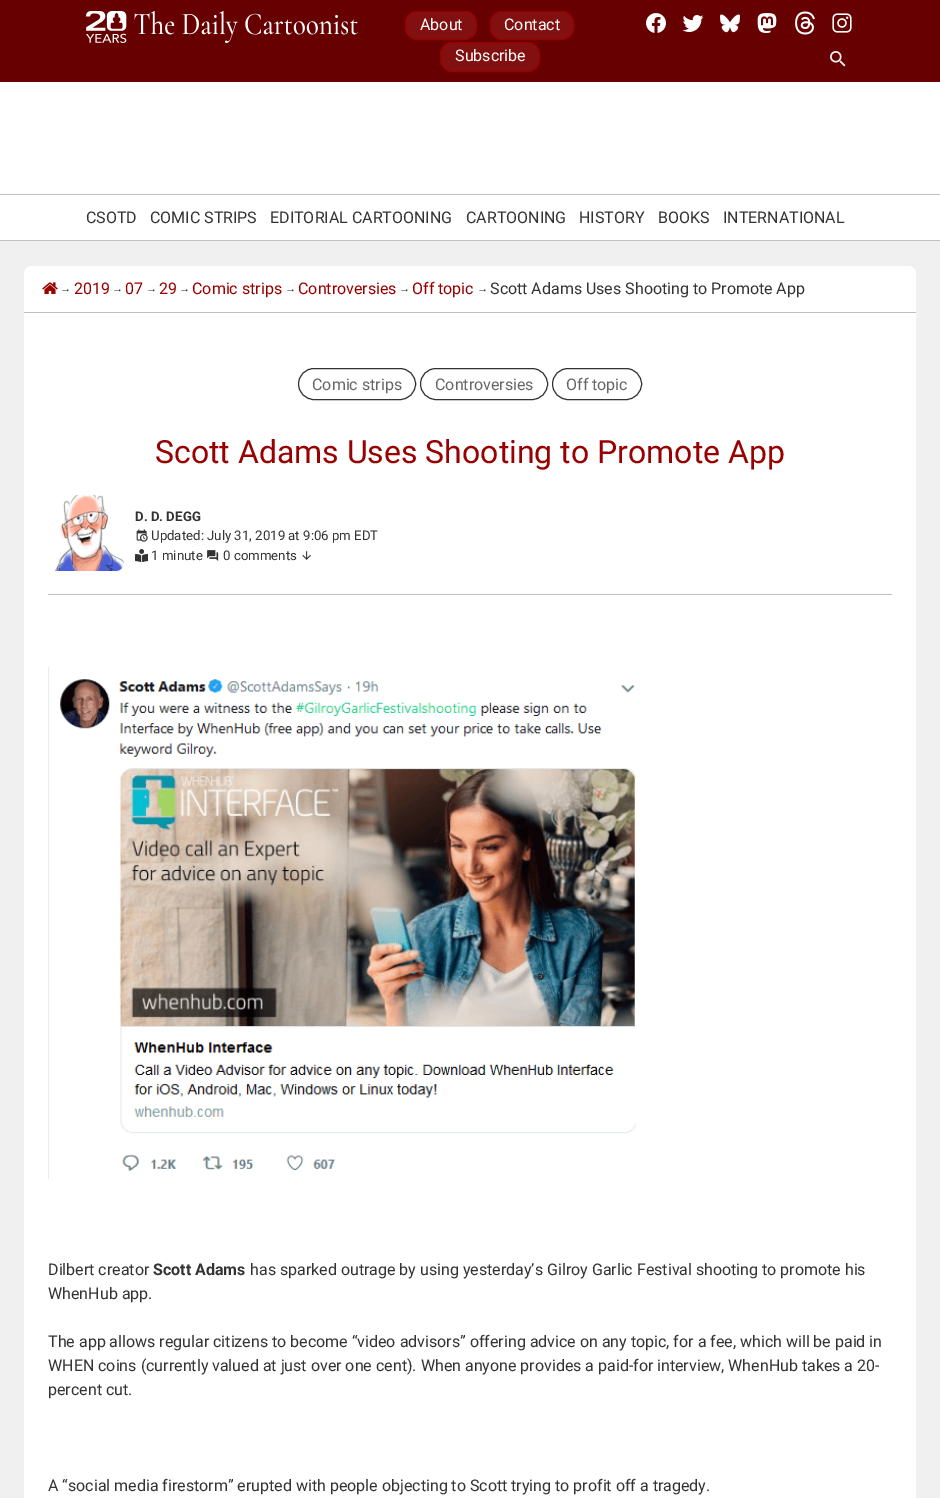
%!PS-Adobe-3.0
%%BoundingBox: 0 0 940 1498
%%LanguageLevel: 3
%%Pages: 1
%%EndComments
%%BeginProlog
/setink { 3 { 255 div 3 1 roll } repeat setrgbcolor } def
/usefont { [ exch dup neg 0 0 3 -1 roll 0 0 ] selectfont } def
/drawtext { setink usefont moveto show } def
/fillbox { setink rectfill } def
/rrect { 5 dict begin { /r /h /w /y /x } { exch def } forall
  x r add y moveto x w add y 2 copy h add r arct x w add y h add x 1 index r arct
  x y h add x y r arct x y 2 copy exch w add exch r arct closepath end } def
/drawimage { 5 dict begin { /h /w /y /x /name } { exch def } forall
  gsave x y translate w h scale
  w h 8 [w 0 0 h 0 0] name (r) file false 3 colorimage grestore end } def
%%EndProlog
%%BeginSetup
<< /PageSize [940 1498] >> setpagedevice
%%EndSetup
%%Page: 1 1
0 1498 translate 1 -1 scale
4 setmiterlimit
0 0 940 1498 240 240 240 fillbox
0 82 940 158 255 255 255 fillbox
0 0 940 82 103 0 0 fillbox
(assets/img1.rgb) 86 11 272 32 drawimage
130 16 16 setink
405.5 11.5 71 28 11.5 rrect gsave fill grestore
153 0 0 setink
stroke
(About) 420 30 /Roboto-Regular 16 255 255 255 drawtext
130 16 16 setink
490.5 11.5 83 28 11.5 rrect gsave fill grestore
153 0 0 setink
stroke
(Contact) 504 30 /Roboto-Regular 16 255 255 255 drawtext
130 16 16 setink
440.5 42.5 99 29 11.5 rrect gsave fill grestore
153 0 0 setink
stroke
(Subscribe) 455 61 /Roboto-Regular 16 255 255 255 drawtext
(assets/img2.rgb) 646 13 20 20 drawimage
(assets/img3.rgb) 682 15 22 17 drawimage
(assets/img4.rgb) 720 14 20 19 drawimage
(assets/img5.rgb) 757 13 20 20 drawimage
(assets/img6.rgb) 795 11 20 24 drawimage
(assets/img7.rgb) 832 13 20 20 drawimage
(assets/img8.rgb) 830 51 16 16 drawimage
0 194 940 1 192 190 190 fillbox
0 240 940 1 192 190 190 fillbox
(CSOTD) 86 223 /Roboto-Regular 16 51 51 51 drawtext
(COMIC STRIPS) 150 223 /Roboto-Regular 16 51 51 51 drawtext
(EDITORIAL CARTOONING) 270 223 /Roboto-Regular 16 51 51 51 drawtext
(CARTOONING) 466 223 /Roboto-Regular 16 51 51 51 drawtext
(HISTORY) 579 223 /Roboto-Regular 16 51 51 51 drawtext
(BOOKS) 658 223 /Roboto-Regular 16 51 51 51 drawtext
(INTERNATIONAL) 723 223 /Roboto-Regular 16 51 51 51 drawtext
255 255 255 setink
32 266 moveto 908 266 lineto 912.5 266 916 269.5 916 274 curveto 916 313 lineto 24 313 lineto 24 274 lineto 24 269.5 27.5 266 32 266 curveto closepath fill
24 312 892 1 192 190 190 fillbox
(assets/img9.rgb) 42 282 16 12 drawimage
(→) 60 292 /LiberationSans-Regular 11 51 51 51 drawtext
(2019) 74 294 /Roboto-Regular 16 153 0 0 drawtext
(→) 112 292 /LiberationSans-Regular 11 51 51 51 drawtext
(07) 125 294 /Roboto-Regular 16 153 0 0 drawtext
(→) 146 292 /LiberationSans-Regular 11 51 51 51 drawtext
(29) 159 294 /Roboto-Regular 16 153 0 0 drawtext
(→) 179 292 /LiberationSans-Regular 11 51 51 51 drawtext
(Comic strips) 192 294 /Roboto-Regular 16 153 0 0 drawtext
(→) 285 292 /LiberationSans-Regular 11 51 51 51 drawtext
(Controversies) 298 294 /Roboto-Regular 16 153 0 0 drawtext
(→) 399 292 /LiberationSans-Regular 11 51 51 51 drawtext
(Off topic) 412 294 /Roboto-Regular 16 153 0 0 drawtext
(→) 477 292 /LiberationSans-Regular 11 51 51 51 drawtext
(Scott Adams Uses Shooting to Promote App) 490 294 /Roboto-Regular 16 51 51 51 drawtext
24 313 892 1185 255 255 255 fillbox
51 51 51 setink
298.5 368.5 117 31 15.5 rrect stroke
(Comic strips) 312 390 /Roboto-Regular 16 102 102 102 drawtext
51 51 51 setink
420.5 368.5 127 31 15.5 rrect stroke
(Controversies) 435 390 /Roboto-Regular 16 102 102 102 drawtext
51 51 51 setink
552.5 368.5 89 31 15.5 rrect stroke
(Off topic) 566 390 /Roboto-Regular 16 102 102 102 drawtext
(Scott Adams Uses Shooting to Promote App) 155 463 /Roboto-Regular 32 153 0 0 drawtext
48 594 844 1 192 190 190 fillbox
(assets/img10.rgb) 54 495 70 76 drawimage
(D. D. DEGG) 135 521 /Roboto-Bold 13.25 51 51 51 drawtext
(assets/img11.rgb) 136 529 12 13 drawimage
(Updated: July 31, 2019 at 9:06 pm EDT) 151 540 /Roboto-Regular 13.25 51 51 51 drawtext
(assets/img12.rgb) 135 549 13 13 drawimage
(1 minute) 151 560 /Roboto-Regular 13.25 51 51 51 drawtext
(assets/img13.rgb) 207 550 12 11 drawimage
(0 comments) 223 560 /Roboto-Regular 13.25 51 51 51 drawtext
(assets/img14.rgb) 302 551 9 9 drawimage
(assets/img15.rgb) 48 667 588 512 drawimage
(Dilbert creator) 48 1275 /Roboto-Regular 16 51 51 51 drawtext
(Scott Adams) 153 1275 /Roboto-Bold 16 51 51 51 drawtext
(has sparked outrage by using yesterday’s Gilroy Garlic Festival shooting to promote his) 250 1275 /Roboto-Regular 16 51 51 51 drawtext
(WhenHub app.) 48 1299 /Roboto-Regular 16 51 51 51 drawtext
(The app allows regular citizens to become “video advisors” offering advice on any topic, for a fee, which will be paid in) 48 1347 /Roboto-Regular 16 51 51 51 drawtext
(WHEN coins \(currently valued at just over one cent\). When anyone provides a paid-for interview, WhenHub takes a 20-) 48 1371 /Roboto-Regular 16 51 51 51 drawtext
(percent cut.) 48 1395 /Roboto-Regular 16 51 51 51 drawtext
(A “social media firestorm” erupted with people objecting to Scott trying to profit off a tragedy.) 48 1491 /Roboto-Regular 16 51 51 51 drawtext
showpage
%%EOF
